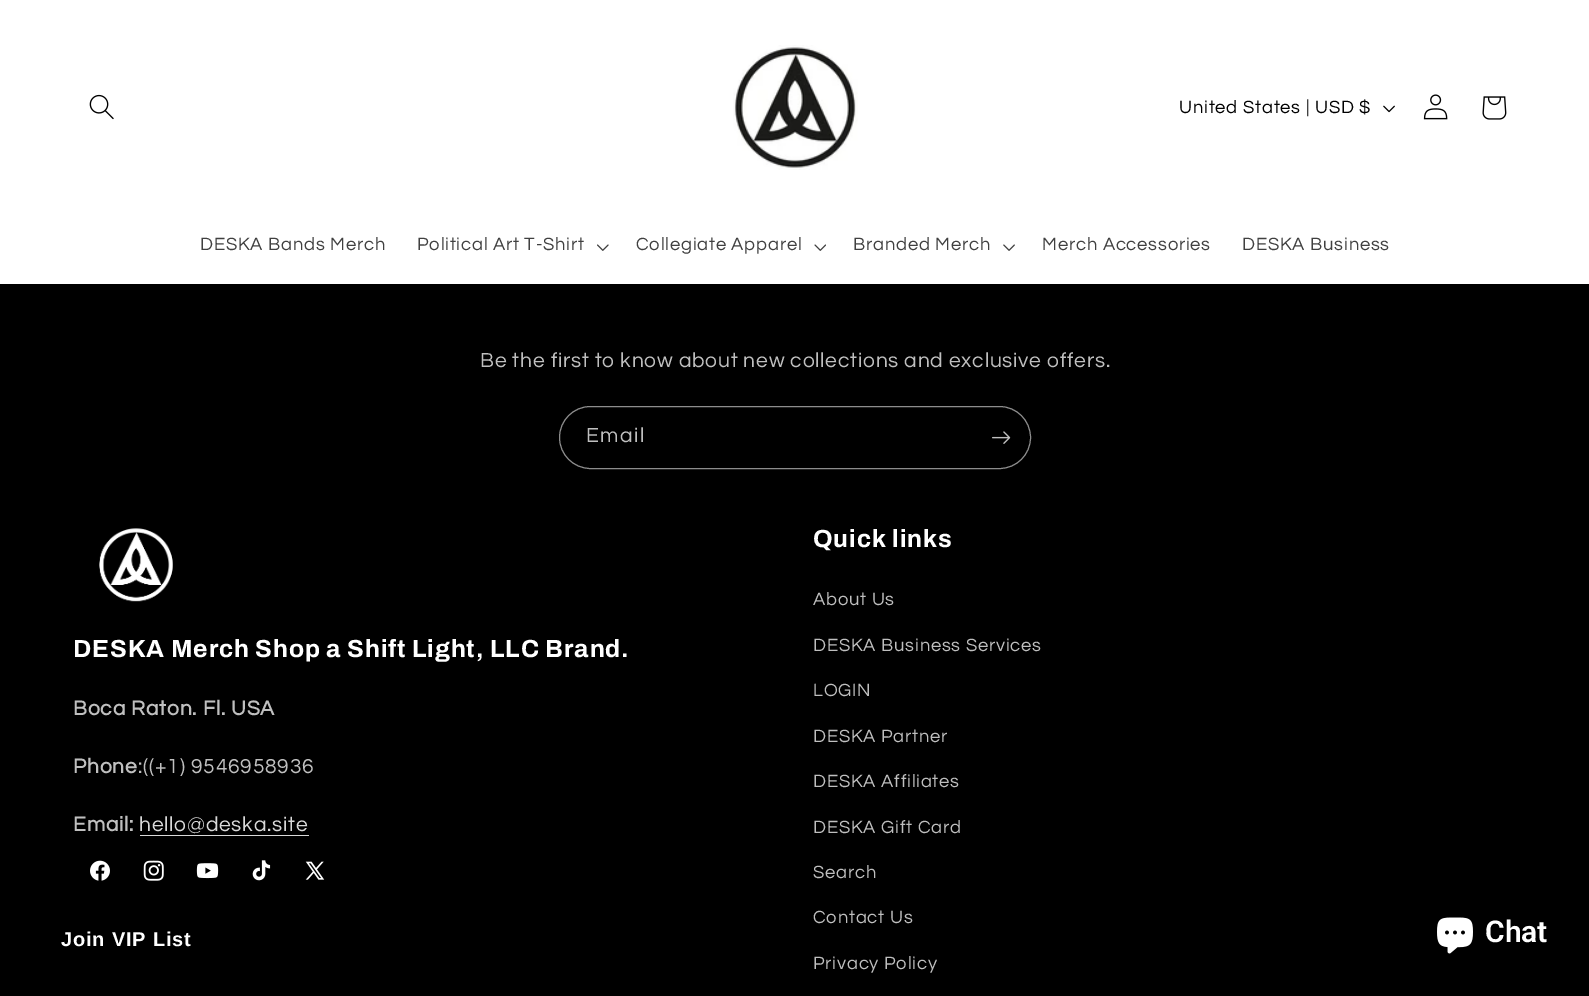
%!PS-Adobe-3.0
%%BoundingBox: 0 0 1589 996
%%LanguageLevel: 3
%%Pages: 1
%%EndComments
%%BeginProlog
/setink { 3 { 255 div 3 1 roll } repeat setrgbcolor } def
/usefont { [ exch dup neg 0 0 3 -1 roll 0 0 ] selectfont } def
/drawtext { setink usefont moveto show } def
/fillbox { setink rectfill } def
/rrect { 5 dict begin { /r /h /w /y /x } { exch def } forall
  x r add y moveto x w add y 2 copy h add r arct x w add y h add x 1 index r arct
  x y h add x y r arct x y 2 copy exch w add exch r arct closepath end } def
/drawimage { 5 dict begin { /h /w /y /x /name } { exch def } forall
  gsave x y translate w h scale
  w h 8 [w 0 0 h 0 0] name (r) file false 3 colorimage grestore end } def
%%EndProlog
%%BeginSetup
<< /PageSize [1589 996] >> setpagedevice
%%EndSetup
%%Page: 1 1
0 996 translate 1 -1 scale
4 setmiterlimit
0 0 1589 996 0 0 0 fillbox
0 0 1589 284 255 255 255 fillbox
(assets/img1.rgb) 89 94 25 26 drawimage
(assets/img2.rgb) 733 45 125 125 drawimage
/Questrial-Regular 18.4 usefont
0 0 0 setink
1179 113 moveto 0.8 0 (United States | USD $) ashow
(assets/img3.rgb) 1383 105 12 8 drawimage
(assets/img4.rgb) 1423 94 25 26 drawimage
(assets/img5.rgb) 1482 96 25 24 drawimage
64 64 64 setink
200 250 moveto 0.8 0 (DESKA Bands Merch) ashow
417 250 moveto 0.8 0 (Political Art T-Shirt) ashow
(assets/img6.rgb) 597 244 12 7 drawimage
636 250 moveto 0.8 0 (Collegiate Apparel) ashow
(assets/img7.rgb) 814 244 12 7 drawimage
853 250 moveto 0.8 0 (Branded Merch) ashow
(assets/img8.rgb) 1003 244 12 7 drawimage
1042 250 moveto 0.8 0 (Merch Accessories) ashow
1242 250 moveto 0.8 0 (DESKA Business) ashow
/Questrial-Regular 21 usefont
191 191 191 setink
480 367 moveto 0.8 0 (Be the first to know about new collections and exclusive offers.) ashow
140 140 140 setink
559.5 406.5 471 62 31 rrect stroke
191 191 191 setink
586 442 moveto 1.5 0 (Email) ashow
(assets/img9.rgb) 992 431 19 13 drawimage
(assets/img10.rgb) 99 528 74 74 drawimage
/Archivo-Bold 24.75 usefont
255 255 255 setink
73 657 moveto 0.85 0 (DESKA Merch Shop a Shift Light, LLC Brand.) ashow
/Questrial-Bold 21 usefont
191 191 191 setink
73 715 moveto 0.8 0 (Boca Raton. Fl. USA) ashow
73 773 moveto 0.8 0 (Phone) ashow
/Questrial-Regular 21 usefont
138 773 moveto 0.8 0 (:\(\(+1\) 9546958936) ashow
/Questrial-Bold 21 usefont
73 831 moveto 0.8 0 (Email:) ashow
/Questrial-Regular 21 usefont
217 217 217 setink
139 831 moveto 0.8 0 (hello@deska.site) ashow
140 835 169 1 217 217 217 fillbox
(assets/img11.rgb) 90 860 20 21 drawimage
(assets/img12.rgb) 143 860 21 21 drawimage
(assets/img13.rgb) 196 863 23 16 drawimage
(assets/img14.rgb) 252 860 19 21 drawimage
(assets/img15.rgb) 305 861 20 19 drawimage
/Archivo-Bold 24.75 usefont
255 255 255 setink
813 547 moveto 0.85 0 (Quick links) ashow
/Questrial-Regular 18.4 usefont
191 191 191 setink
813 605 moveto 0.8 0 (About Us) ashow
813 651 moveto 0.8 0 (DESKA Business Services) ashow
813 696 moveto 0.8 0 (LOGIN) ashow
813 742 moveto 0.8 0 (DESKA Partner) ashow
813 787 moveto 0.8 0 (DESKA Affiliates) ashow
813 833 moveto 0.8 0 (DESKA Gift Card) ashow
813 878 moveto 0.8 0 (Search) ashow
813 923 moveto 0.8 0 (Contact Us) ashow
813 969 moveto 0.8 0 (Privacy Policy) ashow
(assets/img16.rgb) 1437 917 36 37 drawimage
(Chat) 1485 942 /Roboto-SemiBold 30 255 255 255 drawtext
/LiberationSans-Bold 20 usefont
61 946 moveto 0.8 0 (Join VIP List) ashow
showpage
%%EOF
